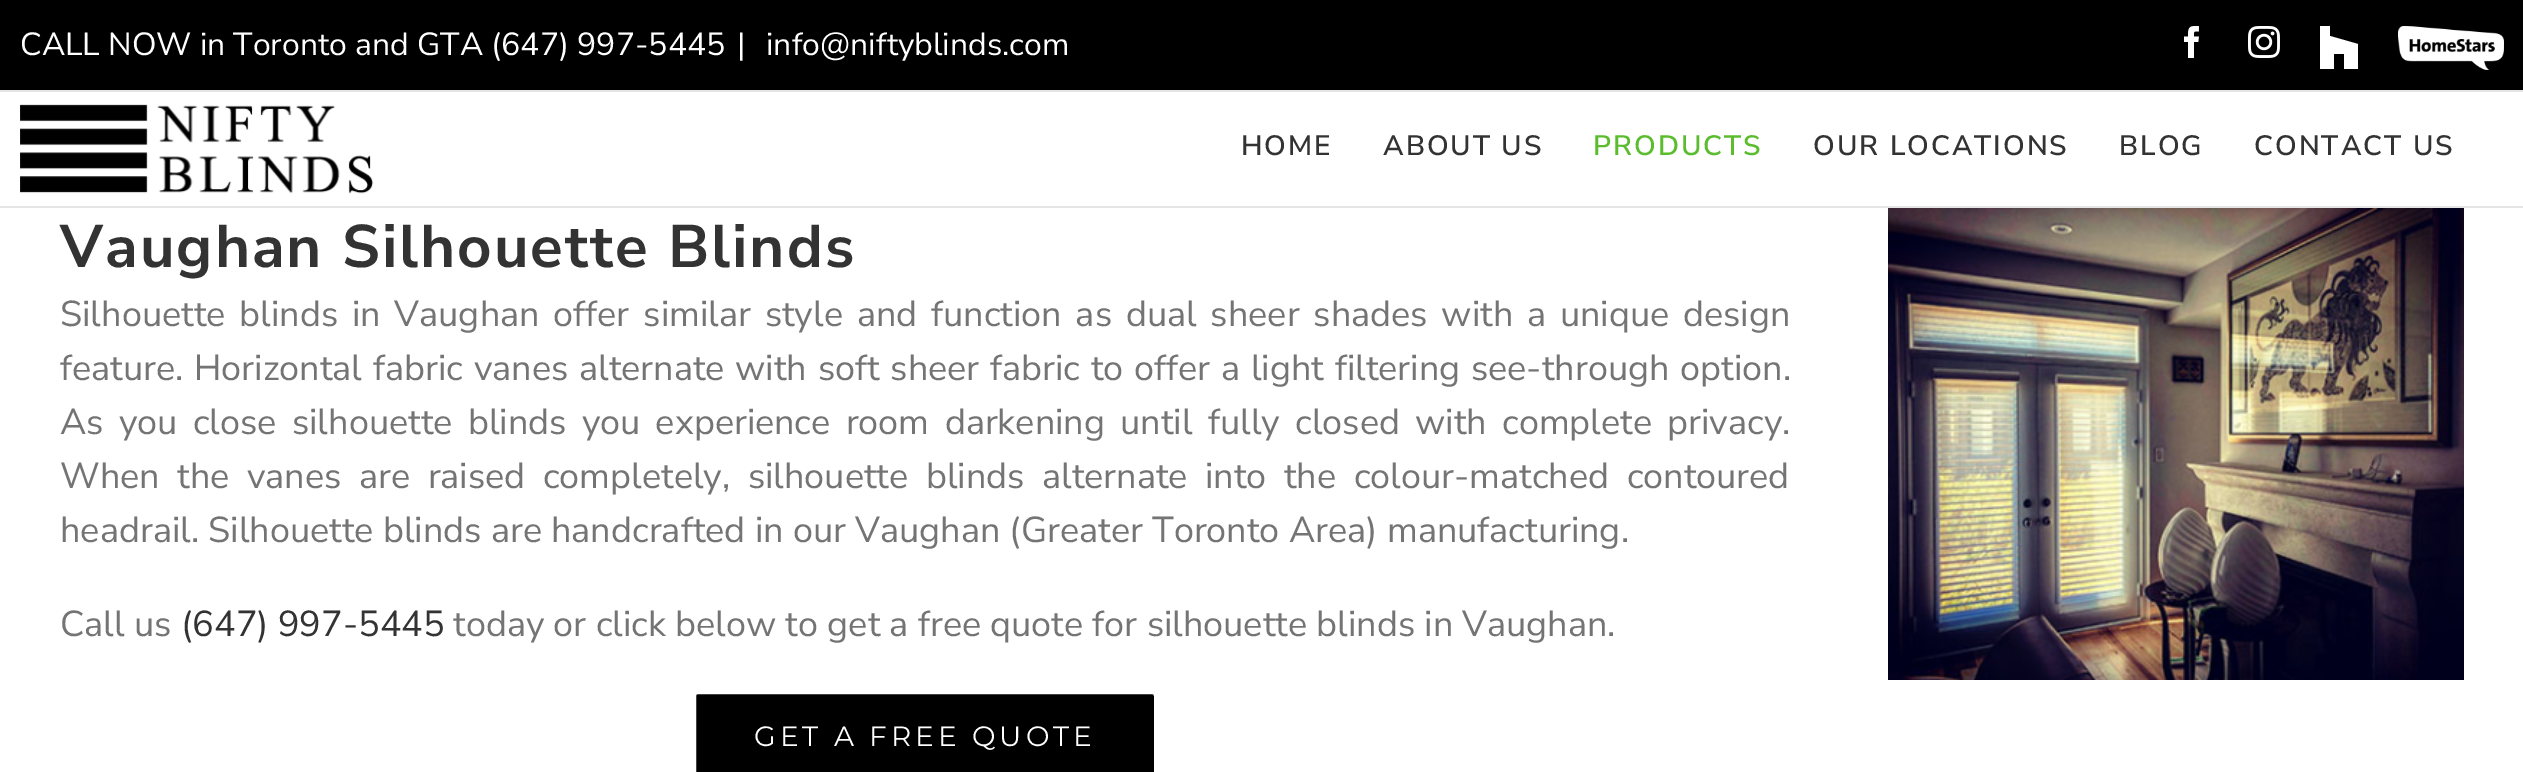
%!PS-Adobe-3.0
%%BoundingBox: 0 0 2523 772
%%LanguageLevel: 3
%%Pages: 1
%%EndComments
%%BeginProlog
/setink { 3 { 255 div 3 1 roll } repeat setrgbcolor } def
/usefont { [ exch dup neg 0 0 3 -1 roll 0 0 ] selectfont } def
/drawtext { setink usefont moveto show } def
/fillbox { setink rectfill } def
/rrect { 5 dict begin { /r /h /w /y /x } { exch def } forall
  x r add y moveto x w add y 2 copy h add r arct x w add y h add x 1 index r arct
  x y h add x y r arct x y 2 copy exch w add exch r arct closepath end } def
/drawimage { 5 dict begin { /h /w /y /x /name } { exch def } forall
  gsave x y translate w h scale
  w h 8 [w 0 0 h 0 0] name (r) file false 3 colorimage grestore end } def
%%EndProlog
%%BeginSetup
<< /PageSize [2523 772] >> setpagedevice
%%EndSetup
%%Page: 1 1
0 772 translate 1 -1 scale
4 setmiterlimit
0 0 2523 772 255 255 255 fillbox
0 0 2523 90 0 0 0 fillbox
0 90 2523 2 229 229 229 fillbox
(CALL NOW in Toronto and GTA \(647\) 997-5445) 20 55 /NunitoSans-Regular 32 255 255 255 drawtext
(|) 737 55 /NunitoSans-Regular 32 255 255 255 drawtext
(info@niftyblinds.com) 766 55 /NunitoSans-Regular 32 255 255 255 drawtext
(assets/img1.rgb) 2184 26 15 32 drawimage
(assets/img2.rgb) 2248 26 32 32 drawimage
2344 54 moveto 2334 54 lineto 2334 69 lineto 2320 69 lineto 2320 26 lineto 2330 26 lineto 2330 36 lineto 2358 44 lineto 2358 69 lineto 2344 69 lineto closepath fill
(assets/img3.rgb) 2398 26 106 44 drawimage
0 206 2523 2 229 229 229 fillbox
(assets/img4.rgb) 20 104 354 90 drawimage
/NunitoSans-SemiBold 28 usefont
51 51 51 setink
1241 155 moveto 2 0 (HOME) ashow
1383 155 moveto 2 0 (ABOUT US) ashow
91 188 46 setink
1593 155 moveto 2 0 (PRODUCTS) ashow
51 51 51 setink
1813 155 moveto 2 0 (OUR LOCATIONS) ashow
2119 155 moveto 2 0 (BLOG) ashow
2254 155 moveto 2 0 (CONTACT US) ashow
/NunitoSans-Bold 60 usefont
60 267 moveto 2 0 (Vaughan Silhouette Blinds) ashow
/NunitoSans-Regular 36 usefont
116 116 116 setink
60 326 moveto 4.6 0 32 (Silhouette blinds in Vaughan offer similar style and function as dual sheer shades with a unique design) widthshow
60 380 moveto 1.5 0 32 (feature. Horizontal fabric vanes alternate with soft sheer fabric to offer a light filtering see-through option.) widthshow
60 434 moveto 6 0 32 (As you close silhouette blinds you experience room darkening until fully closed with complete privacy.) widthshow
60 488 moveto 8.25 0 32 (When the vanes are raised completely, silhouette blinds alternate into the colour-matched contoured) widthshow
(headrail. Silhouette blinds are handcrafted in our Vaughan \(Greater Toronto Area\) manufacturing.) 60 542 /NunitoSans-Regular 36 116 116 116 drawtext
(Call us) 60 636 /NunitoSans-Regular 36 116 116 116 drawtext
(\(647\) 997-5445) 181 636 /NunitoSans-Regular 36 51 51 51 drawtext
(today or click below to get a free quote for silhouette blinds in Vaughan.) 453 636 /NunitoSans-Regular 36 116 116 116 drawtext
0 0 0 setink
695 693 460 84 3 rrect gsave fill grestore
255 255 255 setink
2 setlinewidth
stroke
/Montserrat-Regular 28 usefont
754 746 moveto 4 0 (GET A FREE QUOTE) ashow
(assets/img5.rgb) 1888 208 576 472 drawimage
showpage
%%EOF
